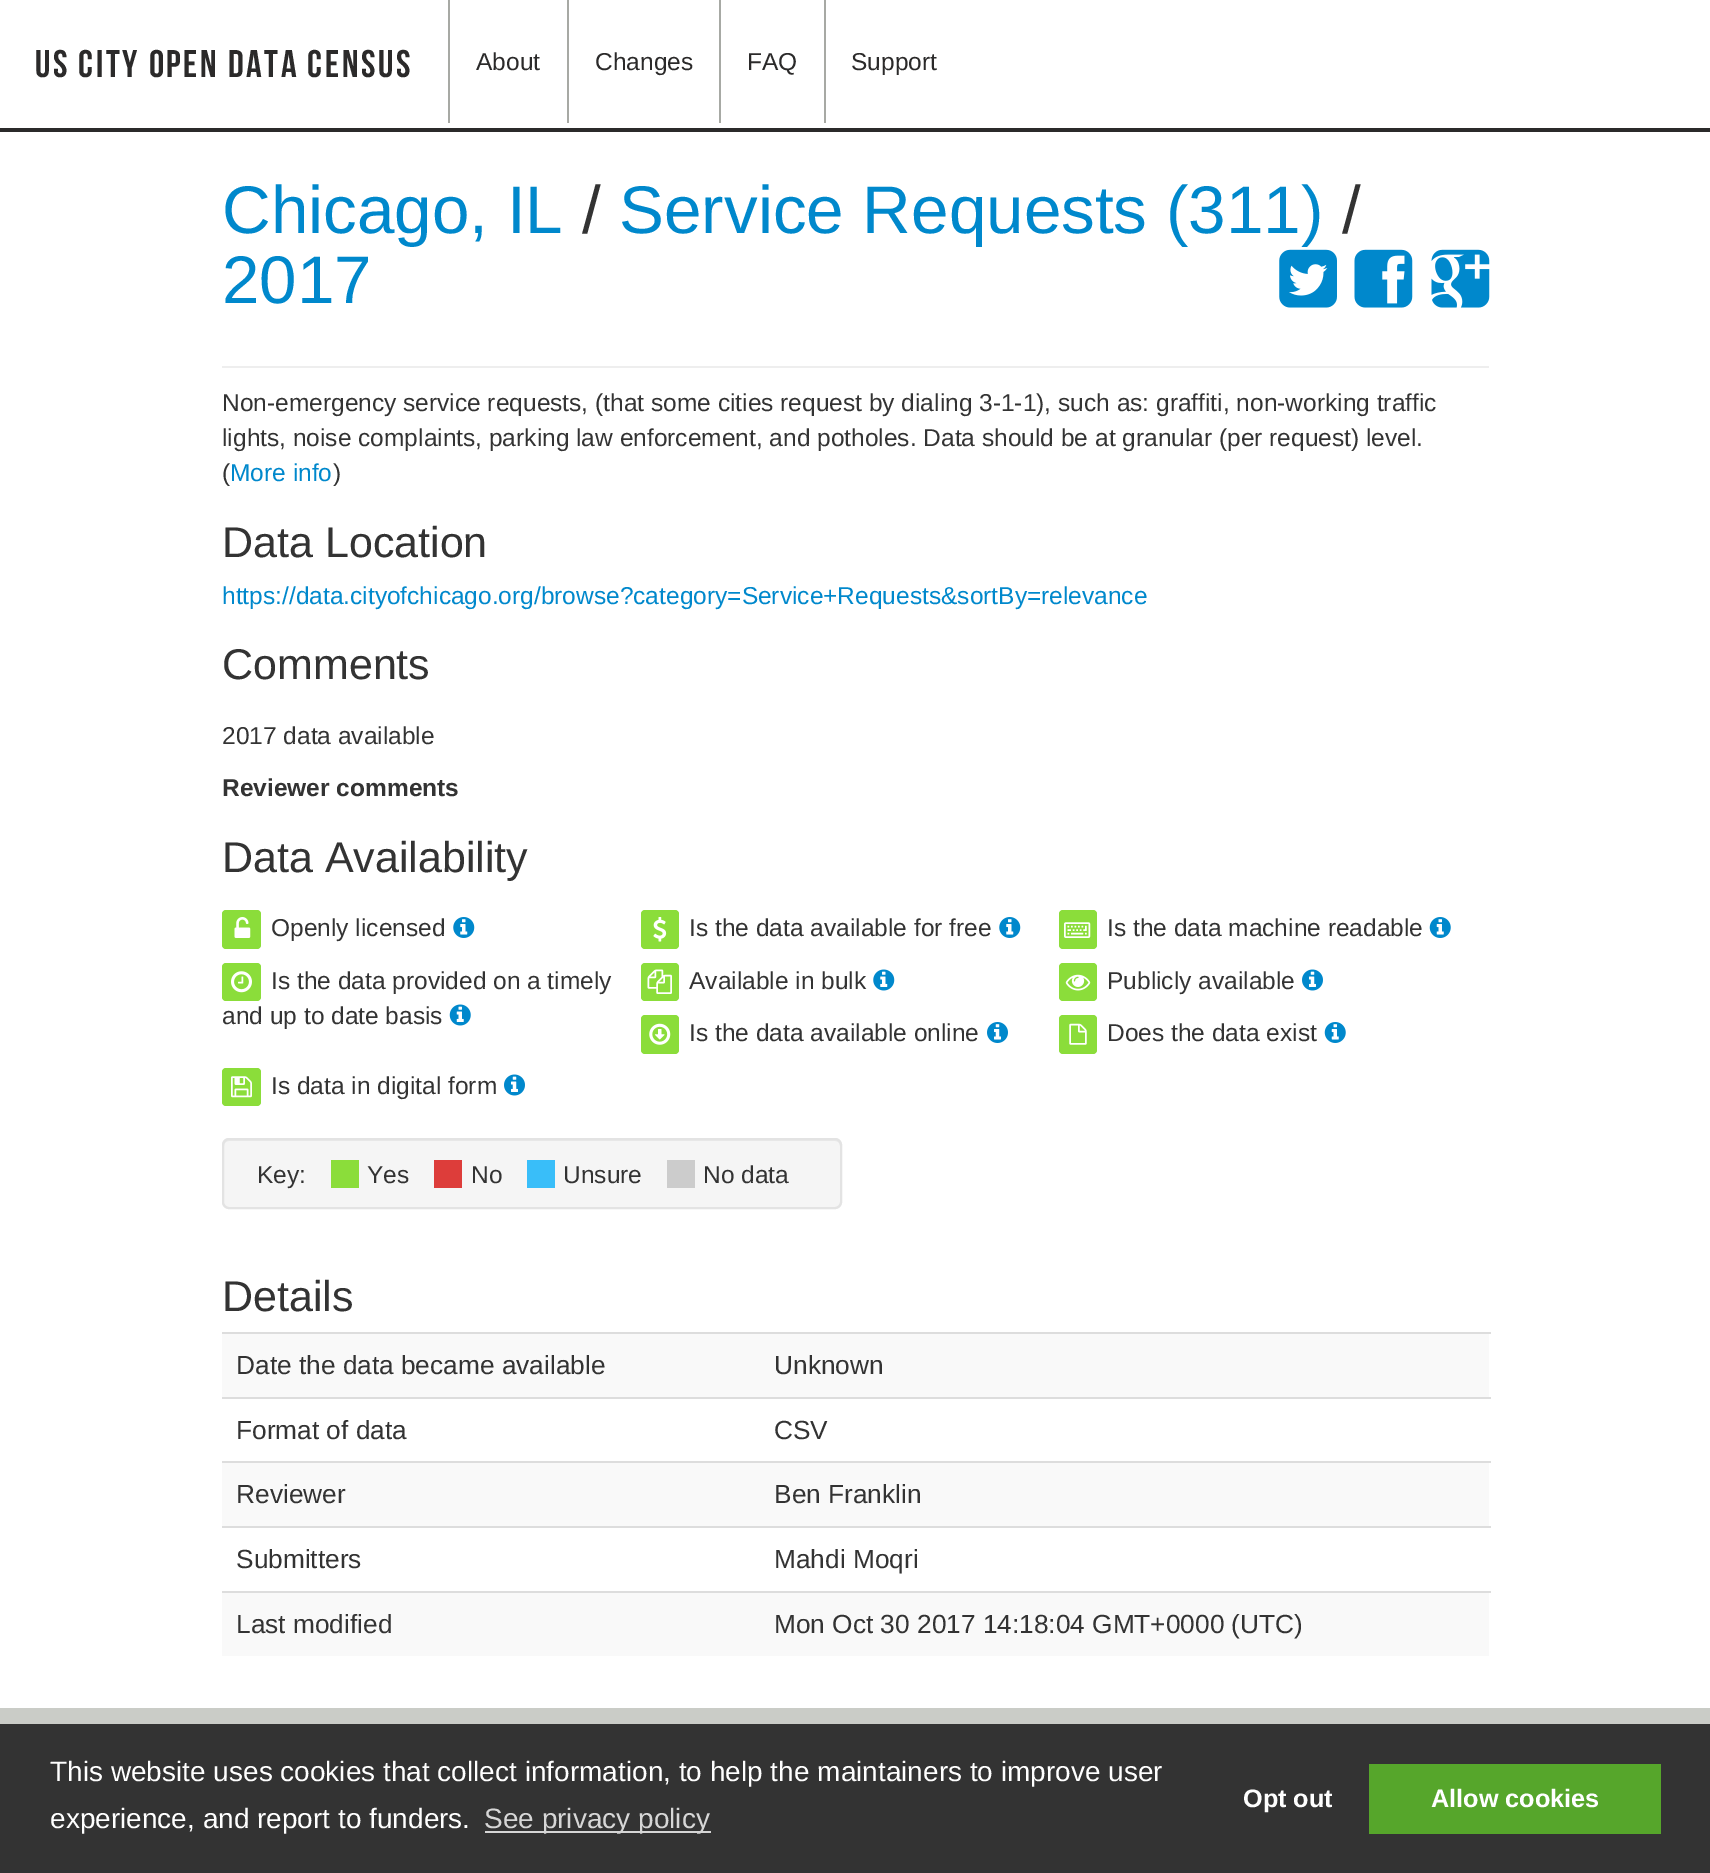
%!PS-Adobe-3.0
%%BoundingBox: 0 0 1710 1873
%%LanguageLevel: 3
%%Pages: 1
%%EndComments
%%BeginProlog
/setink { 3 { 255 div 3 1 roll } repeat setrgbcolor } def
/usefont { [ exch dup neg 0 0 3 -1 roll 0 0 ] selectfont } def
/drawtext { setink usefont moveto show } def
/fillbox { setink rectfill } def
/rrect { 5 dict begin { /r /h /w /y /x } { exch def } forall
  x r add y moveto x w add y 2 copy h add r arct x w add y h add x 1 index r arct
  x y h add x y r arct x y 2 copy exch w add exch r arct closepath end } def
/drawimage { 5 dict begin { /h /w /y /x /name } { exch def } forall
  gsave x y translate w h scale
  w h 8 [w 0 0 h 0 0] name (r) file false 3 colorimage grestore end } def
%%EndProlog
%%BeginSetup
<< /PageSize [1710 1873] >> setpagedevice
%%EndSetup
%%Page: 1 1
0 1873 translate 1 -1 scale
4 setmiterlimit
0 0 1710 1873 255 255 255 fillbox
0 128 1710 4 43 42 42 fillbox
/BebasNeue-Regular 38.5 usefont
35 77 moveto 2.6 0 (US City Open Data Census) ashow
448 0 2 123 167 169 164 fillbox
(About) 476 70 /LiberationSans-Regular 24.5 43 42 42 drawtext
567 0 2 123 167 169 164 fillbox
(Changes) 595 70 /LiberationSans-Regular 24.5 43 42 42 drawtext
719 0 2 123 167 169 164 fillbox
(FAQ) 747 70 /LiberationSans-Regular 24.5 43 42 42 drawtext
824 0 2 123 167 169 164 fillbox
(Support) 851 70 /LiberationSans-Regular 24.5 43 42 42 drawtext
222 366 1267 2 238 238 238 fillbox
(Chicago, IL) 222 233 /LiberationSans-Regular 67.4 0 136 204 drawtext
(/) 582 233 /LiberationSans-Regular 67.4 51 51 51 drawtext
(Service Requests \(311\)) 619 233 /LiberationSans-Regular 67.4 0 136 204 drawtext
(/) 1342 233 /LiberationSans-Regular 67.4 51 51 51 drawtext
(2017) 222 303 /LiberationSans-Regular 67.4 0 136 204 drawtext
(assets/img1.rgb) 1279 249 58 59 drawimage
(assets/img2.rgb) 1354 249 59 59 drawimage
(assets/img3.rgb) 1431 249 59 59 drawimage
(Non-emergency service requests, \(that some cities request by dialing 3-1-1\), such as: graffiti, non-working traffic) 222 411 /LiberationSans-Regular 24.5 51 51 51 drawtext
(lights, noise complaints, parking law enforcement, and potholes. Data should be at granular \(per request\) level.) 222 446 /LiberationSans-Regular 24.5 51 51 51 drawtext
(\() 222 481 /LiberationSans-Regular 24.5 51 51 51 drawtext
(More info) 230 481 /LiberationSans-Regular 24.5 0 136 204 drawtext
(\)) 333 481 /LiberationSans-Regular 24.5 51 51 51 drawtext
(Data Location) 222 557 /LiberationSans-Regular 43 51 51 51 drawtext
(https://data.cityofchicago.org/browse?category=Service+Requests&sortBy=relevance) 222 604 /LiberationSans-Regular 24.5 0 136 204 drawtext
(Comments) 222 679 /LiberationSans-Regular 43 51 51 51 drawtext
(2017 data available) 222 744 /LiberationSans-Regular 24.5 51 51 51 drawtext
(Reviewer comments) 222 796 /LiberationSans-Bold 24.5 51 51 51 drawtext
(Data Availability) 222 872 /LiberationSans-Regular 43 51 51 51 drawtext
139 221 58 setink
222 910 39 39 4 rrect fill
(assets/img4.rgb) 234 917 17 21 drawimage
(Openly licensed) 271 936 /LiberationSans-Regular 24.5 51 51 51 drawtext
(assets/img5.rgb) 453 917 22 21 drawimage
139 221 58 setink
641 910 38 39 4 rrect fill
(assets/img6.rgb) 653 917 14 25 drawimage
(Is the data available for free) 689 936 /LiberationSans-Regular 24.5 51 51 51 drawtext
(assets/img5.rgb) 999 917 22 21 drawimage
139 221 58 setink
1059 910 38 39 4 rrect fill
(assets/img7.rgb) 1064 922 27 16 drawimage
(Is the data machine readable) 1107 936 /LiberationSans-Regular 24.5 51 51 51 drawtext
(assets/img8.rgb) 1429 917 22 21 drawimage
139 221 58 setink
222 963 39 38 4 rrect fill
(assets/img9.rgb) 231 971 21 22 drawimage
(Is the data provided on a timely) 271 989 /LiberationSans-Regular 24.5 51 51 51 drawtext
(and up to date basis) 222 1024 /LiberationSans-Regular 24.5 51 51 51 drawtext
(assets/img10.rgb) 449 1004 22 22 drawimage
139 221 58 setink
641 963 38 38 4 rrect fill
(assets/img11.rgb) 647 969 25 25 drawimage
(Available in bulk) 689 989 /LiberationSans-Regular 24.5 51 51 51 drawtext
(assets/img12.rgb) 873 969 22 22 drawimage
139 221 58 setink
1059 963 38 38 4 rrect fill
(assets/img13.rgb) 1065 974 26 17 drawimage
(Publicly available) 1107 989 /LiberationSans-Regular 24.5 51 51 51 drawtext
(assets/img14.rgb) 1302 969 21 22 drawimage
139 221 58 setink
641 1015 38 39 4 rrect fill
(assets/img15.rgb) 649 1023 22 22 drawimage
(Is the data available online) 689 1041 /LiberationSans-Regular 24.5 51 51 51 drawtext
(assets/img16.rgb) 987 1022 21 21 drawimage
139 221 58 setink
1059 1015 38 39 4 rrect fill
(assets/img17.rgb) 1069 1023 18 22 drawimage
(Does the data exist) 1107 1041 /LiberationSans-Regular 24.5 51 51 51 drawtext
(assets/img8.rgb) 1324 1022 22 21 drawimage
139 221 58 setink
222 1068 39 38 4 rrect fill
(assets/img18.rgb) 231 1076 21 22 drawimage
(Is data in digital form) 271 1094 /LiberationSans-Regular 24.5 51 51 51 drawtext
(assets/img14.rgb) 504 1074 21 22 drawimage
245 245 245 setink
222 1138 620 71 7 rrect fill
233 233 233 setink
229 1141 moveto 835 1141 lineto 838 1141 840 1143 840 1146 curveto 840 1143 839 1139 835 1139 curveto 229 1139 lineto 225 1139 224 1143 224 1146 curveto 224 1143 226 1141 229 1141 curveto closepath fill
227 227 227 setink
2 setlinewidth
223 1139 618 69 6 rrect stroke
(Key:) 257 1183 /LiberationSans-Regular 24.5 51 51 51 drawtext
331 1160 28 28 139 221 58 fillbox
(Yes) 367 1183 /LiberationSans-Regular 24.5 51 51 51 drawtext
434 1160 28 28 221 61 58 fillbox
(No) 471 1183 /LiberationSans-Regular 24.5 51 51 51 drawtext
527 1160 28 28 57 190 249 fillbox
(Unsure) 563 1183 /LiberationSans-Regular 24.5 51 51 51 drawtext
667 1160 28 28 204 204 204 fillbox
(No data) 703 1183 /LiberationSans-Regular 24.5 51 51 51 drawtext
(Details) 222 1311 /LiberationSans-Regular 43 51 51 51 drawtext
222 1334 1267 63 249 249 249 fillbox
(Date the data became available) 236 1374 /LiberationSans-Regular 26.25 51 51 51 drawtext
222 1332 1269 2 221 221 221 fillbox
(Unknown) 774 1374 /LiberationSans-Regular 26.25 51 51 51 drawtext
(Format of data) 236 1439 /LiberationSans-Regular 26.25 51 51 51 drawtext
222 1397 1269 2 221 221 221 fillbox
(CSV) 774 1439 /LiberationSans-Regular 26.25 51 51 51 drawtext
222 1463 1267 63 249 249 249 fillbox
(Reviewer) 236 1503 /LiberationSans-Regular 26.25 51 51 51 drawtext
222 1461 1269 2 221 221 221 fillbox
(Ben Franklin) 774 1503 /LiberationSans-Regular 26.25 51 51 51 drawtext
(Submitters) 236 1568 /LiberationSans-Regular 26.25 51 51 51 drawtext
222 1526 1269 2 221 221 221 fillbox
(Mahdi Moqri) 774 1568 /LiberationSans-Regular 26.25 51 51 51 drawtext
222 1593 1267 63 249 249 249 fillbox
(Last modified) 236 1633 /LiberationSans-Regular 26.25 51 51 51 drawtext
222 1591 1269 2 221 221 221 fillbox
(Mon Oct 30 2017 14:18:04 GMT+0000 \(UTC\)) 774 1633 /LiberationSans-Regular 26.25 51 51 51 drawtext
0 1708 1710 16 202 204 199 fillbox
0 1724 1710 149 51 51 51 fillbox
(This website uses cookies that collect information, to help the maintainers to improve user) 50 1781 /LiberationSans-Regular 28 255 255 255 drawtext
(experience, and report to funders.) 50 1828 /LiberationSans-Regular 28 255 255 255 drawtext
485 1831 226 2 214 214 214 fillbox
(See privacy policy) 484 1828 /LiberationSans-Regular 28 214 214 214 drawtext
(Opt out) 1243 1807 /LiberationSans-Bold 25.25 255 255 255 drawtext
1369 1764 292 70 86 166 43 fillbox
(Allow cookies) 1431 1807 /LiberationSans-Bold 25.25 255 255 255 drawtext
showpage
%%EOF
